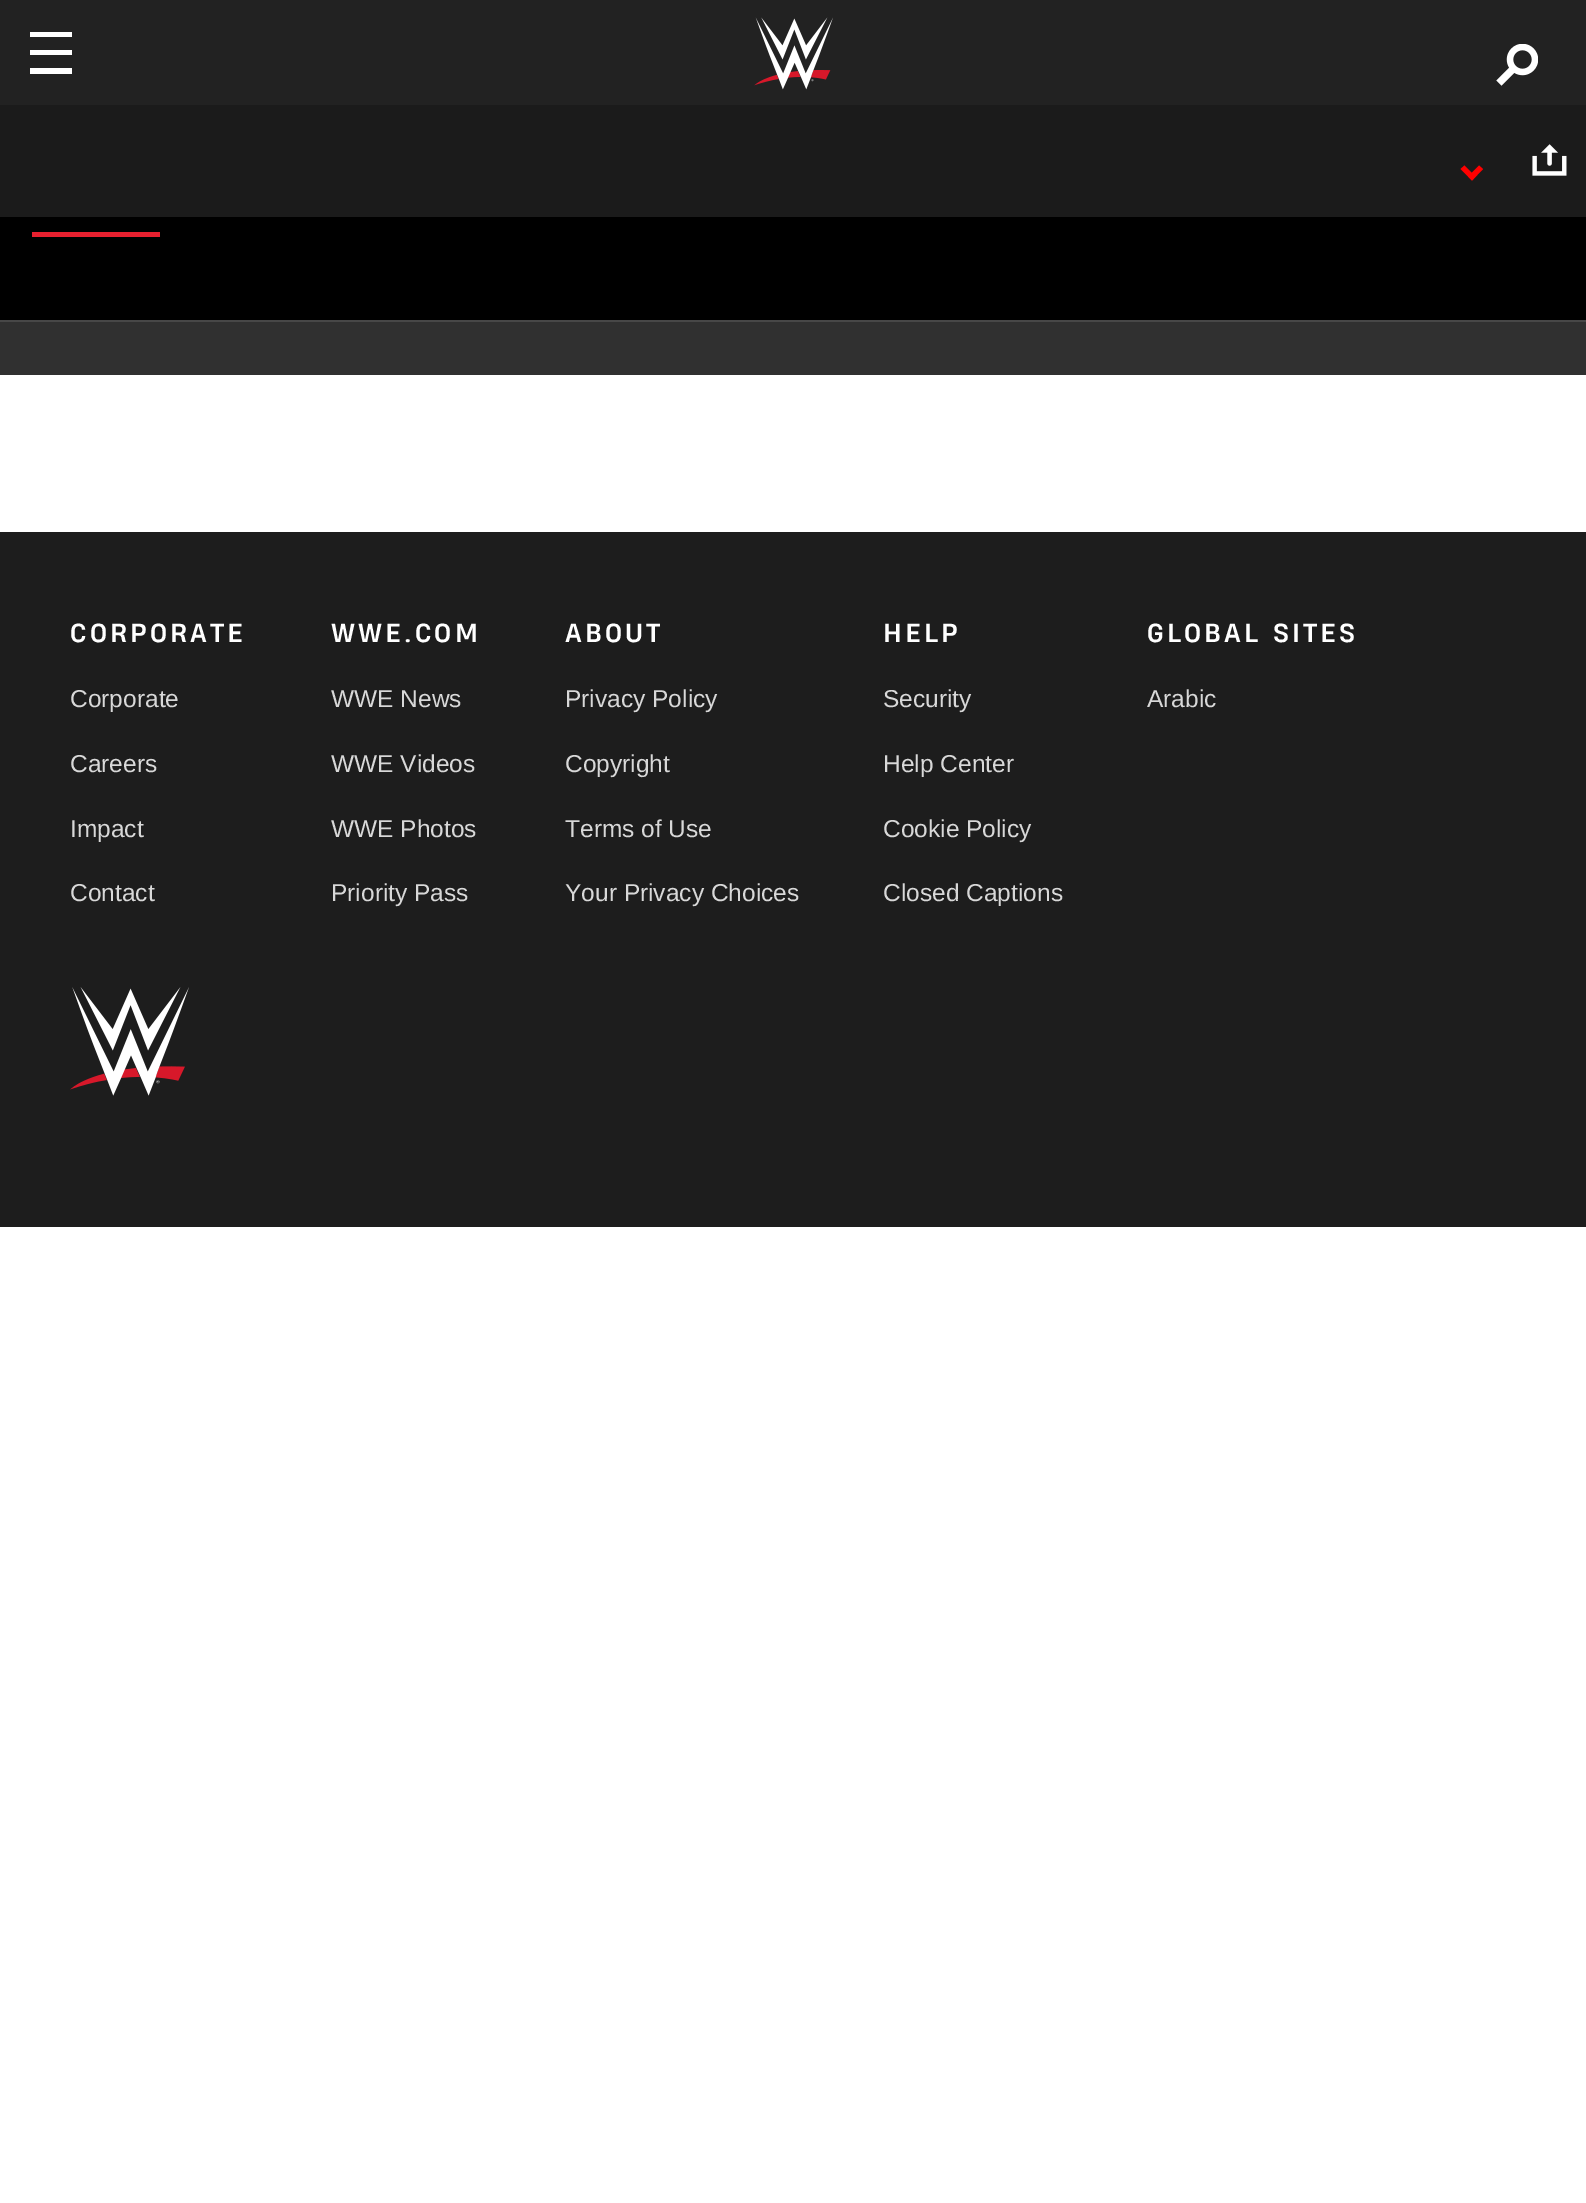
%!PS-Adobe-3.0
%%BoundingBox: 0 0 1586 2203
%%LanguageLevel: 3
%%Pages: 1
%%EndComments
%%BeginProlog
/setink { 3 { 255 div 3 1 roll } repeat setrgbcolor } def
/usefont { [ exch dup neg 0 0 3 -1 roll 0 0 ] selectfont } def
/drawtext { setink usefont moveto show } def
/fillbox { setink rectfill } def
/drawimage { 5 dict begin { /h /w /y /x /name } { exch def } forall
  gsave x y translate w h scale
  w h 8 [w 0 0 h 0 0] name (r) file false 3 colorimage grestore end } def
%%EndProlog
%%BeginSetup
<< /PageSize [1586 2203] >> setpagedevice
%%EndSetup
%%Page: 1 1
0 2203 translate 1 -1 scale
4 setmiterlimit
0 0 1586 2203 255 255 255 fillbox
0 0 1586 105 34 34 34 fillbox
255 255 255 setink
32 37 moveto 30 37 lineto 30 32 lineto 72 32 lineto 72 37 lineto closepath 32 55 moveto 30 55 lineto 30 50 lineto 72 50 lineto 72 55 lineto closepath 32 74 moveto 30 74 lineto 30 68 lineto 72 68 lineto 72 74 lineto closepath eofill
(assets/img1.rgb) 754 17 79 73 drawimage
(assets/img2.rgb) 1496 44 42 42 drawimage
0 322 1586 53 48 48 48 fillbox
0 105 1586 112 27 27 27 fillbox
255 0 0 setink
1479 165.5 moveto 1483 169 lineto 1472 180.5 lineto 1468 176.5 lineto closepath fill
1464.5 165.5 moveto 1475.5 176.5 lineto 1472 180.5 lineto 1460.5 169 lineto closepath fill
(assets/img3.rgb) 1532 144 35 32 drawimage
0 217 1586 103 0 0 0 fillbox
0 320 1586 2 71 71 71 fillbox
32 232 128 5 231 32 47 fillbox
0 532 1586 695 29 29 29 fillbox
/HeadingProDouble-Bold 24.5 usefont
255 255 255 setink
70 642 moveto 3 0 (CORPORATE) ashow
(Corporate) 70 707 /LiberationSans-Regular 24.5 216 216 216 drawtext
(Careers) 70 772 /LiberationSans-Regular 24.5 216 216 216 drawtext
(Impact) 70 837 /LiberationSans-Regular 24.5 216 216 216 drawtext
(Contact) 70 901 /LiberationSans-Regular 24.5 216 216 216 drawtext
/HeadingProDouble-Bold 24.5 usefont
255 255 255 setink
331 642 moveto 3 0 (WWE.COM) ashow
(WWE News) 331 707 /LiberationSans-Regular 24.5 216 216 216 drawtext
(WWE Videos) 331 772 /LiberationSans-Regular 24.5 216 216 216 drawtext
(WWE Photos) 331 837 /LiberationSans-Regular 24.5 216 216 216 drawtext
(Priority Pass) 331 901 /LiberationSans-Regular 24.5 216 216 216 drawtext
/HeadingProDouble-Bold 24.5 usefont
255 255 255 setink
565 642 moveto 3 0 (ABOUT) ashow
(Privacy Policy) 565 707 /LiberationSans-Regular 24.5 216 216 216 drawtext
(Copyright) 565 772 /LiberationSans-Regular 24.5 216 216 216 drawtext
(Terms of Use) 565 837 /LiberationSans-Regular 24.5 216 216 216 drawtext
(Your Privacy Choices) 565 901 /LiberationSans-Regular 24.5 216 216 216 drawtext
/HeadingProDouble-Bold 24.5 usefont
255 255 255 setink
883 642 moveto 3 0 (HELP) ashow
(Security) 883 707 /LiberationSans-Regular 24.5 216 216 216 drawtext
(Help Center) 883 772 /LiberationSans-Regular 24.5 216 216 216 drawtext
(Cookie Policy) 883 837 /LiberationSans-Regular 24.5 216 216 216 drawtext
(Closed Captions) 883 901 /LiberationSans-Regular 24.5 216 216 216 drawtext
/HeadingProDouble-Bold 24.5 usefont
255 255 255 setink
1147 642 moveto 3 0 (GLOBAL SITES) ashow
(Arabic) 1147 707 /LiberationSans-Regular 24.5 216 216 216 drawtext
(assets/img4.rgb) 70 987 119 109 drawimage
showpage
%%EOF
